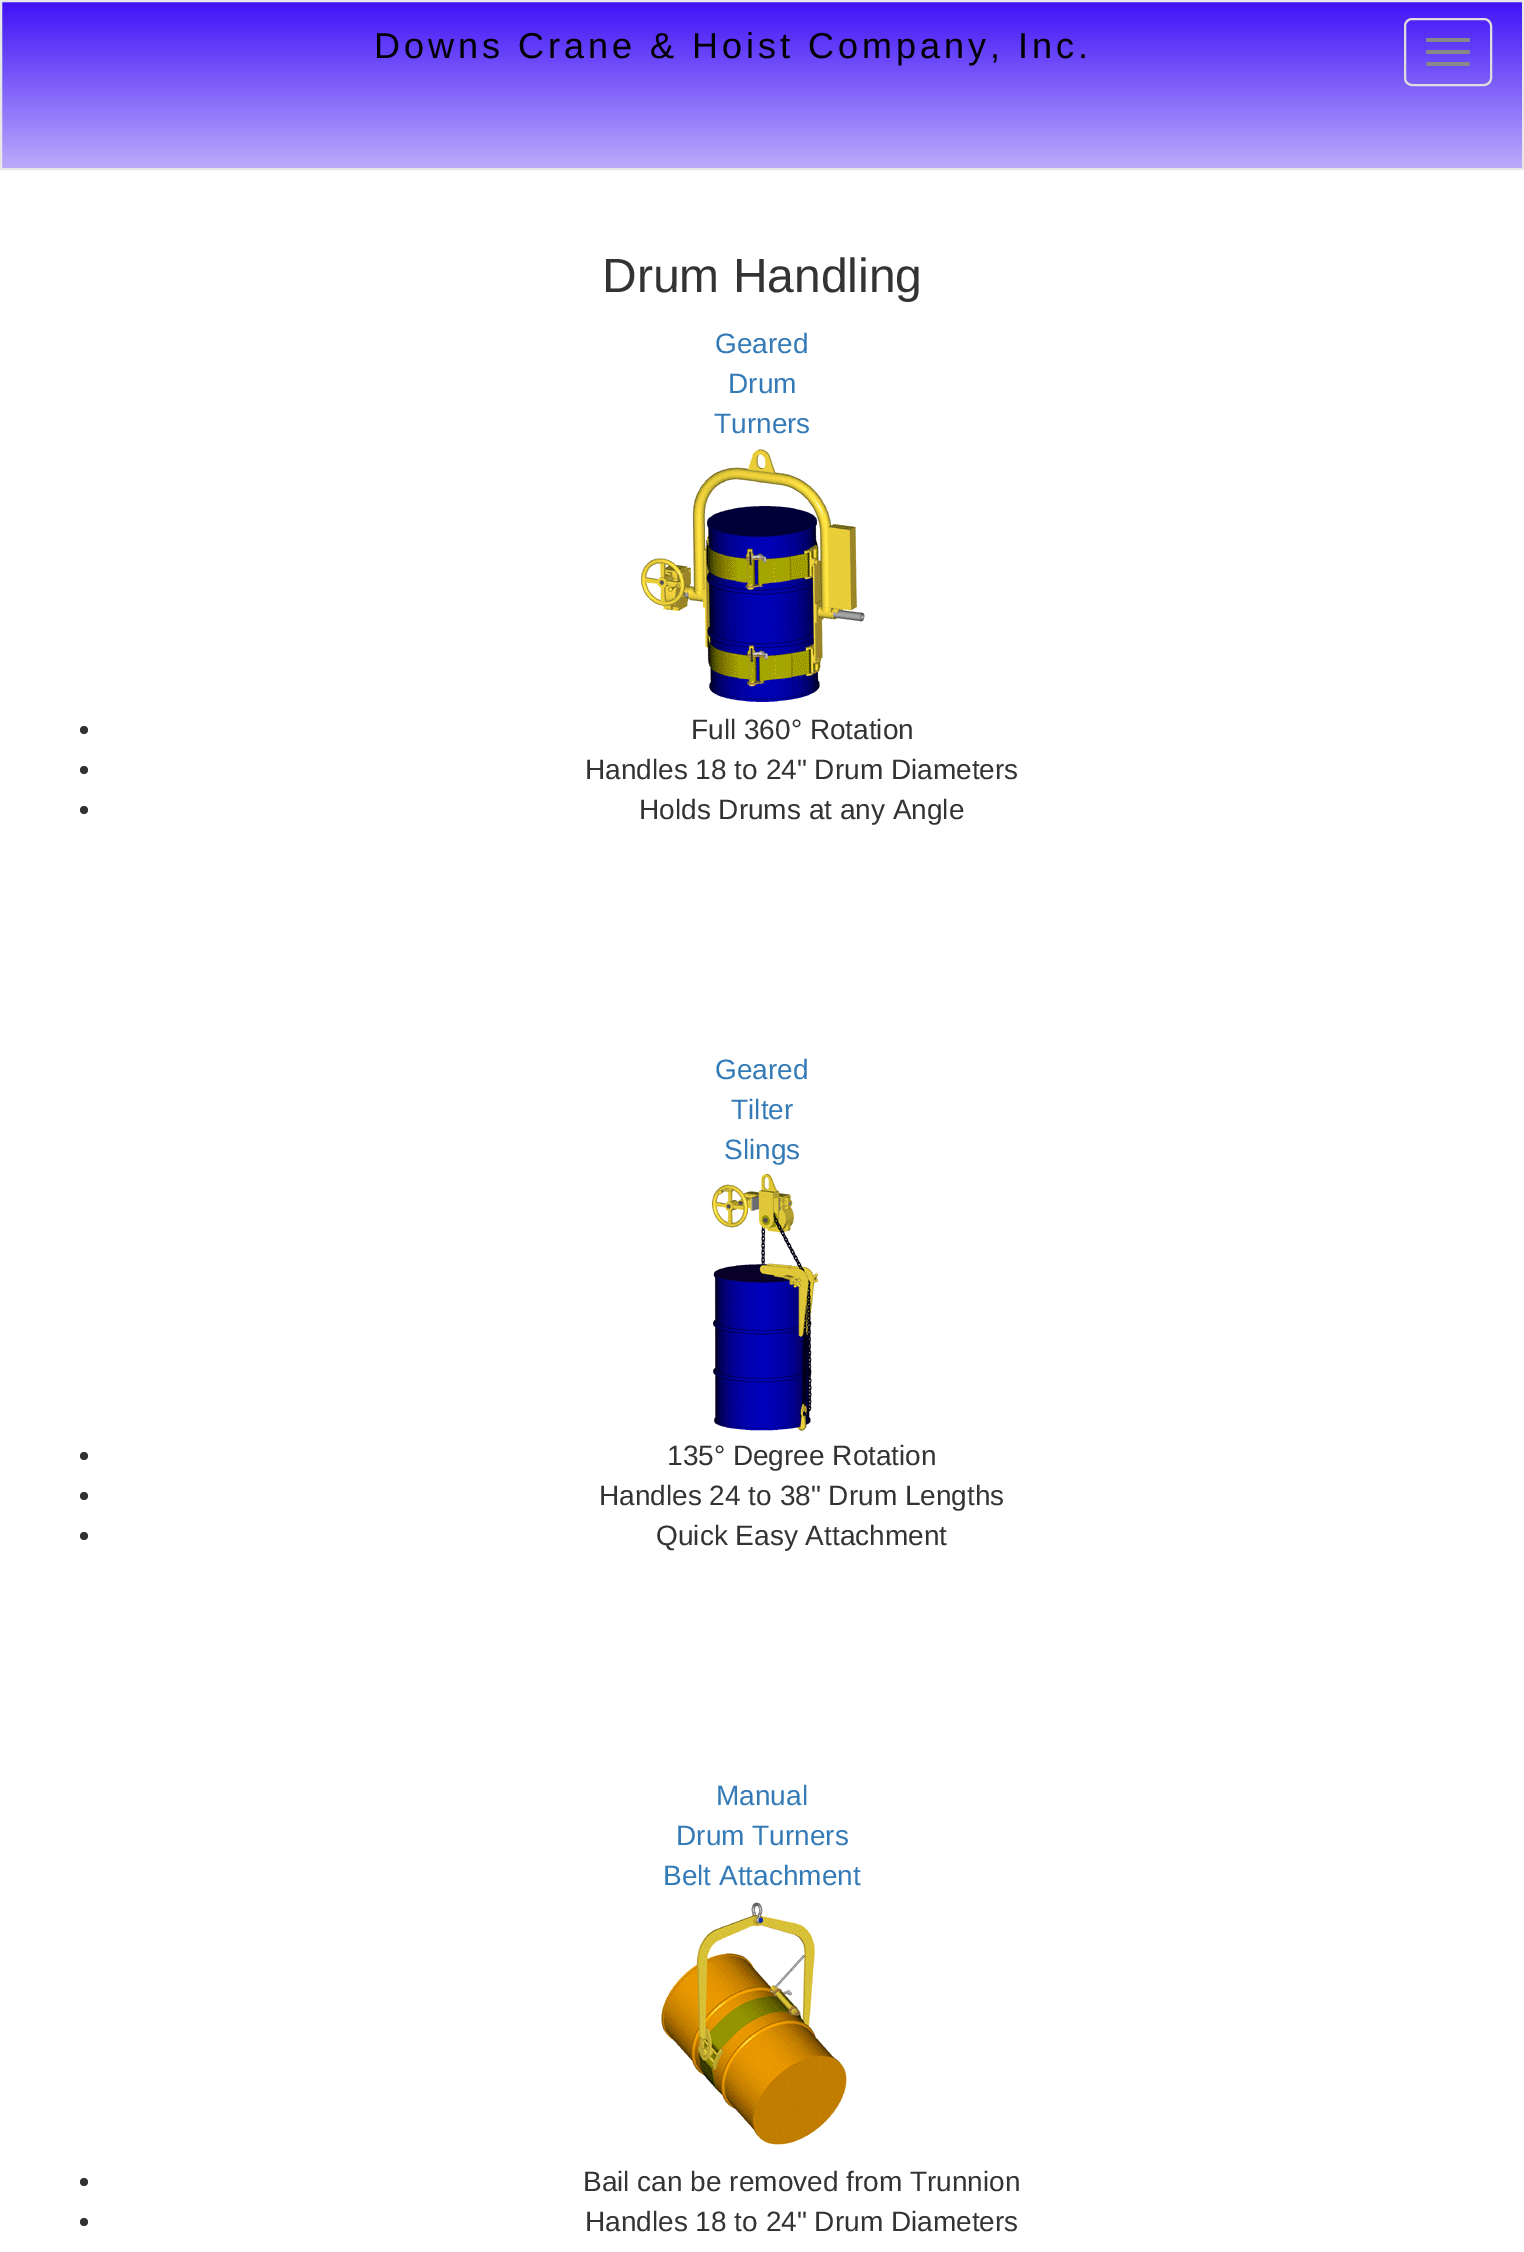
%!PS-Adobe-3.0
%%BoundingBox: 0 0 1524 2252
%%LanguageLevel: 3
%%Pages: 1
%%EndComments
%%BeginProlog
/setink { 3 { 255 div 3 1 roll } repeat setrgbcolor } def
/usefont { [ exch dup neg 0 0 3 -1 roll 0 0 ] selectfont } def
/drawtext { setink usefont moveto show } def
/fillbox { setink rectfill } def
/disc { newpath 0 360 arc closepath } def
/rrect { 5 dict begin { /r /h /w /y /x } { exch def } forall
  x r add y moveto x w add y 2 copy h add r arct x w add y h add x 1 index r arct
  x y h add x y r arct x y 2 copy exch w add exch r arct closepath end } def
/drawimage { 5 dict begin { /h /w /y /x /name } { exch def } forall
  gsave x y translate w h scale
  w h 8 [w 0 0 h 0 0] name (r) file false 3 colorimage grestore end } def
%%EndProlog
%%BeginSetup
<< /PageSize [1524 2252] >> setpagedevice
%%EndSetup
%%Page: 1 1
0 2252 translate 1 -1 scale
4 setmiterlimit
0 0 1524 2252 255 255 255 fillbox
gsave 2 2 moveto 1522 2 lineto 1522 168 lineto 2 168 lineto closepath clip newpath
<< /ShadingType 2 /ColorSpace /DeviceRGB /Coords [762 2 762 168] /Extend [true true] /Function << /FunctionType 2 /Domain [0 1] /C0 [0.251 0.075 0.969] /C1 [0.733 0.671 0.984] /N 1 >> >> shfill grestore
231 231 231 setink
2 setlinewidth
1 1 1522 168 rectstroke
/LiberationSans-Regular 36 usefont
0 0 0 setink
374 58 moveto 4 0 (Downs Crane & Hoist Company, Inc.) ashow
221 221 221 setink
1405 19 86 66 7 rrect stroke
136 136 136 setink
1426 38 44 4 2 rrect fill
1426 50 44 4 2 rrect fill
1426 62 44 4 2 rrect fill
(Drum Handling) 602 292 /LiberationSans-Regular 48 51 51 51 drawtext
(Geared) 715 353 /LiberationSans-Regular 28 51 122 183 drawtext
(Drum) 728 393 /LiberationSans-Regular 28 51 122 183 drawtext
(Turners) 714 433 /LiberationSans-Regular 28 51 122 183 drawtext
(assets/img1.rgb) 640 449 225 254 drawimage
51 51 51 setink
84 730 4 disc fill
(Full 360° Rotation) 691 739 /LiberationSans-Regular 28 51 51 51 drawtext
84 770 4 disc fill
(Handles 18 to 24" Drum Diameters) 585 779 /LiberationSans-Regular 28 51 51 51 drawtext
84 810 4 disc fill
(Holds Drums at any Angle) 639 819 /LiberationSans-Regular 28 51 51 51 drawtext
(Geared) 715 1079 /LiberationSans-Regular 28 51 122 183 drawtext
(Tilter) 731 1119 /LiberationSans-Regular 28 51 122 183 drawtext
(Slings) 724 1159 /LiberationSans-Regular 28 51 122 183 drawtext
(assets/img2.rgb) 711 1173 108 258 drawimage
51 51 51 setink
84 1456 4 disc fill
(135° Degree Rotation) 667 1465 /LiberationSans-Regular 28 51 51 51 drawtext
84 1496 4 disc fill
(Handles 24 to 38" Drum Lengths) 599 1505 /LiberationSans-Regular 28 51 51 51 drawtext
84 1536 4 disc fill
(Quick Easy Attachment) 656 1545 /LiberationSans-Regular 28 51 51 51 drawtext
(Manual) 716 1805 /LiberationSans-Regular 28 51 122 183 drawtext
(Drum Turners) 676 1845 /LiberationSans-Regular 28 51 122 183 drawtext
(Belt Attachment) 663 1885 /LiberationSans-Regular 28 51 122 183 drawtext
(assets/img3.rgb) 661 1902 186 243 drawimage
51 51 51 setink
84 2182 4 disc fill
(Bail can be removed from Trunnion) 583 2191 /LiberationSans-Regular 28 51 51 51 drawtext
84 2222 4 disc fill
(Handles 18 to 24" Drum Diameters) 585 2231 /LiberationSans-Regular 28 51 51 51 drawtext
showpage
%%EOF
